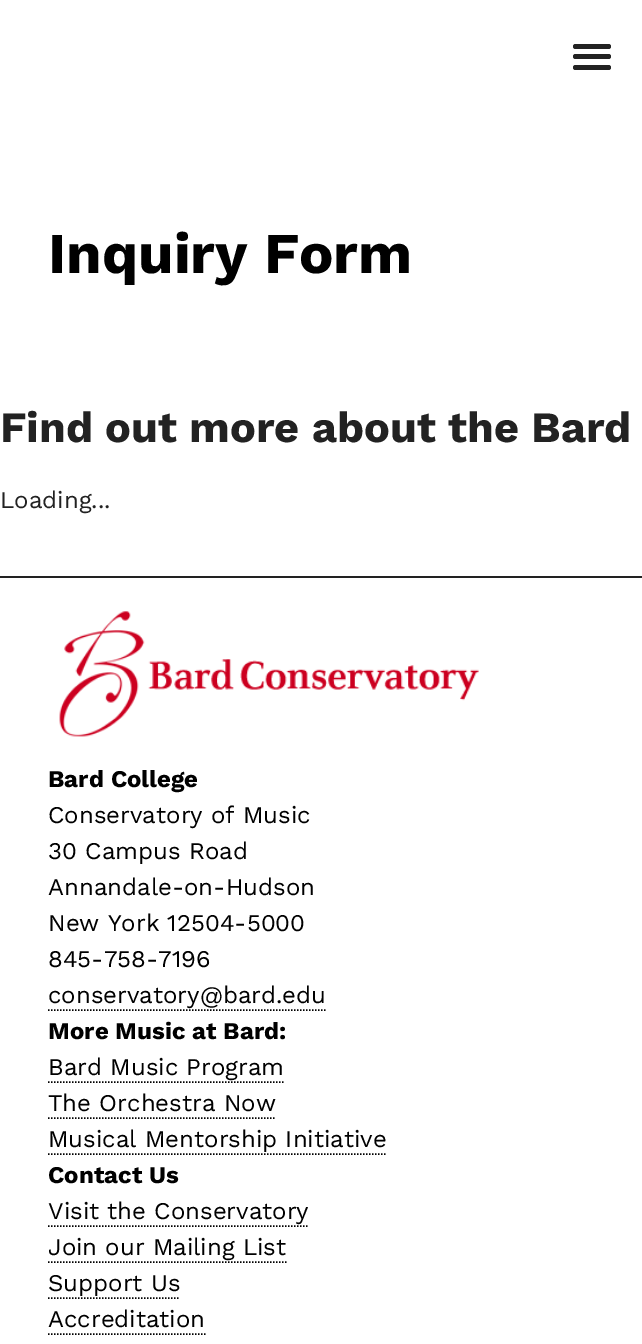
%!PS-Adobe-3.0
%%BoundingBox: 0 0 642 1344
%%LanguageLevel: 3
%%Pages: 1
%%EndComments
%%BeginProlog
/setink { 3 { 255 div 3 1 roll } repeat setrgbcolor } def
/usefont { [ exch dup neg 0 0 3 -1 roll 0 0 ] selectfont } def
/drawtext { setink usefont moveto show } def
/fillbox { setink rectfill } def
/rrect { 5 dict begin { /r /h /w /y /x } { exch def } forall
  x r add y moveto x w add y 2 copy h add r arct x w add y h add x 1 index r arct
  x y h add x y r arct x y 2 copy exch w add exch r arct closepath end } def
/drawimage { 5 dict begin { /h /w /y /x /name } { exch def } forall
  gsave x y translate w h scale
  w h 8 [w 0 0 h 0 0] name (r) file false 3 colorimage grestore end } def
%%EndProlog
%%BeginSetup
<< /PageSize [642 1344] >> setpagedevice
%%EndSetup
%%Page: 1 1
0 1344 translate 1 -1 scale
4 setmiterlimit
0 0 642 1344 255 255 255 fillbox
34 34 34 setink
573 44 38 5 2.5 rrect fill
573 54 38 5 2.5 rrect fill
573 65 38 5 2.5 rrect fill
(Inquiry Form) 48 273 /WorkSans-Bold 57.5 0 0 0 drawtext
(Find out more about the Bard) 0 442 /WorkSans-Bold 43.25 34 34 34 drawtext
(Loading...) 0 508 /WorkSans-Regular 24 34 34 34 drawtext
0 576 642 2 34 34 34 fillbox
(assets/img1.rgb) 59 611 420 126 drawimage
(Bard College) 48 787 /WorkSans-Bold 24 0 0 0 drawtext
(Conservatory of Music) 48 823 /WorkSans-Regular 24 0 0 0 drawtext
(30 Campus Road) 48 859 /WorkSans-Regular 24 0 0 0 drawtext
(Annandale-on-Hudson) 48 895 /WorkSans-Regular 24 0 0 0 drawtext
(New York 12504-5000) 48 931 /WorkSans-Regular 24 0 0 0 drawtext
(845-758-7196) 48 967 /WorkSans-Regular 24 0 0 0 drawtext
(conservatory@bard.edu) 48 1003 /WorkSans-Regular 24 0 0 0 drawtext
1.5 setlinewidth
[1.5 1.5] 0 setdash
48 1010 moveto 327 1010 lineto stroke
(More Music at Bard:) 48 1039 /WorkSans-Bold 24 0 0 0 drawtext
(Bard Music Program) 48 1075 /WorkSans-Regular 24 0 0 0 drawtext
48 1082 moveto 285 1082 lineto stroke
(The Orchestra Now) 48 1111 /WorkSans-Regular 24 0 0 0 drawtext
48 1118 moveto 276 1118 lineto stroke
(Musical Mentorship Initiative) 48 1147 /WorkSans-Regular 24 0 0 0 drawtext
48 1154 moveto 387 1154 lineto stroke
(Contact Us) 48 1183 /WorkSans-Bold 24 0 0 0 drawtext
(Visit the Conservatory) 48 1219 /WorkSans-Regular 24 0 0 0 drawtext
48 1226 moveto 309 1226 lineto stroke
(Join our Mailing List) 48 1255 /WorkSans-Regular 24 0 0 0 drawtext
48 1262 moveto 286.5 1262 lineto stroke
(Support Us) 48 1291 /WorkSans-Regular 24 0 0 0 drawtext
48 1298 moveto 180 1298 lineto stroke
(Accreditation) 48 1327 /WorkSans-Regular 24 0 0 0 drawtext
48 1334 moveto 205.5 1334 lineto stroke
showpage
%%EOF
